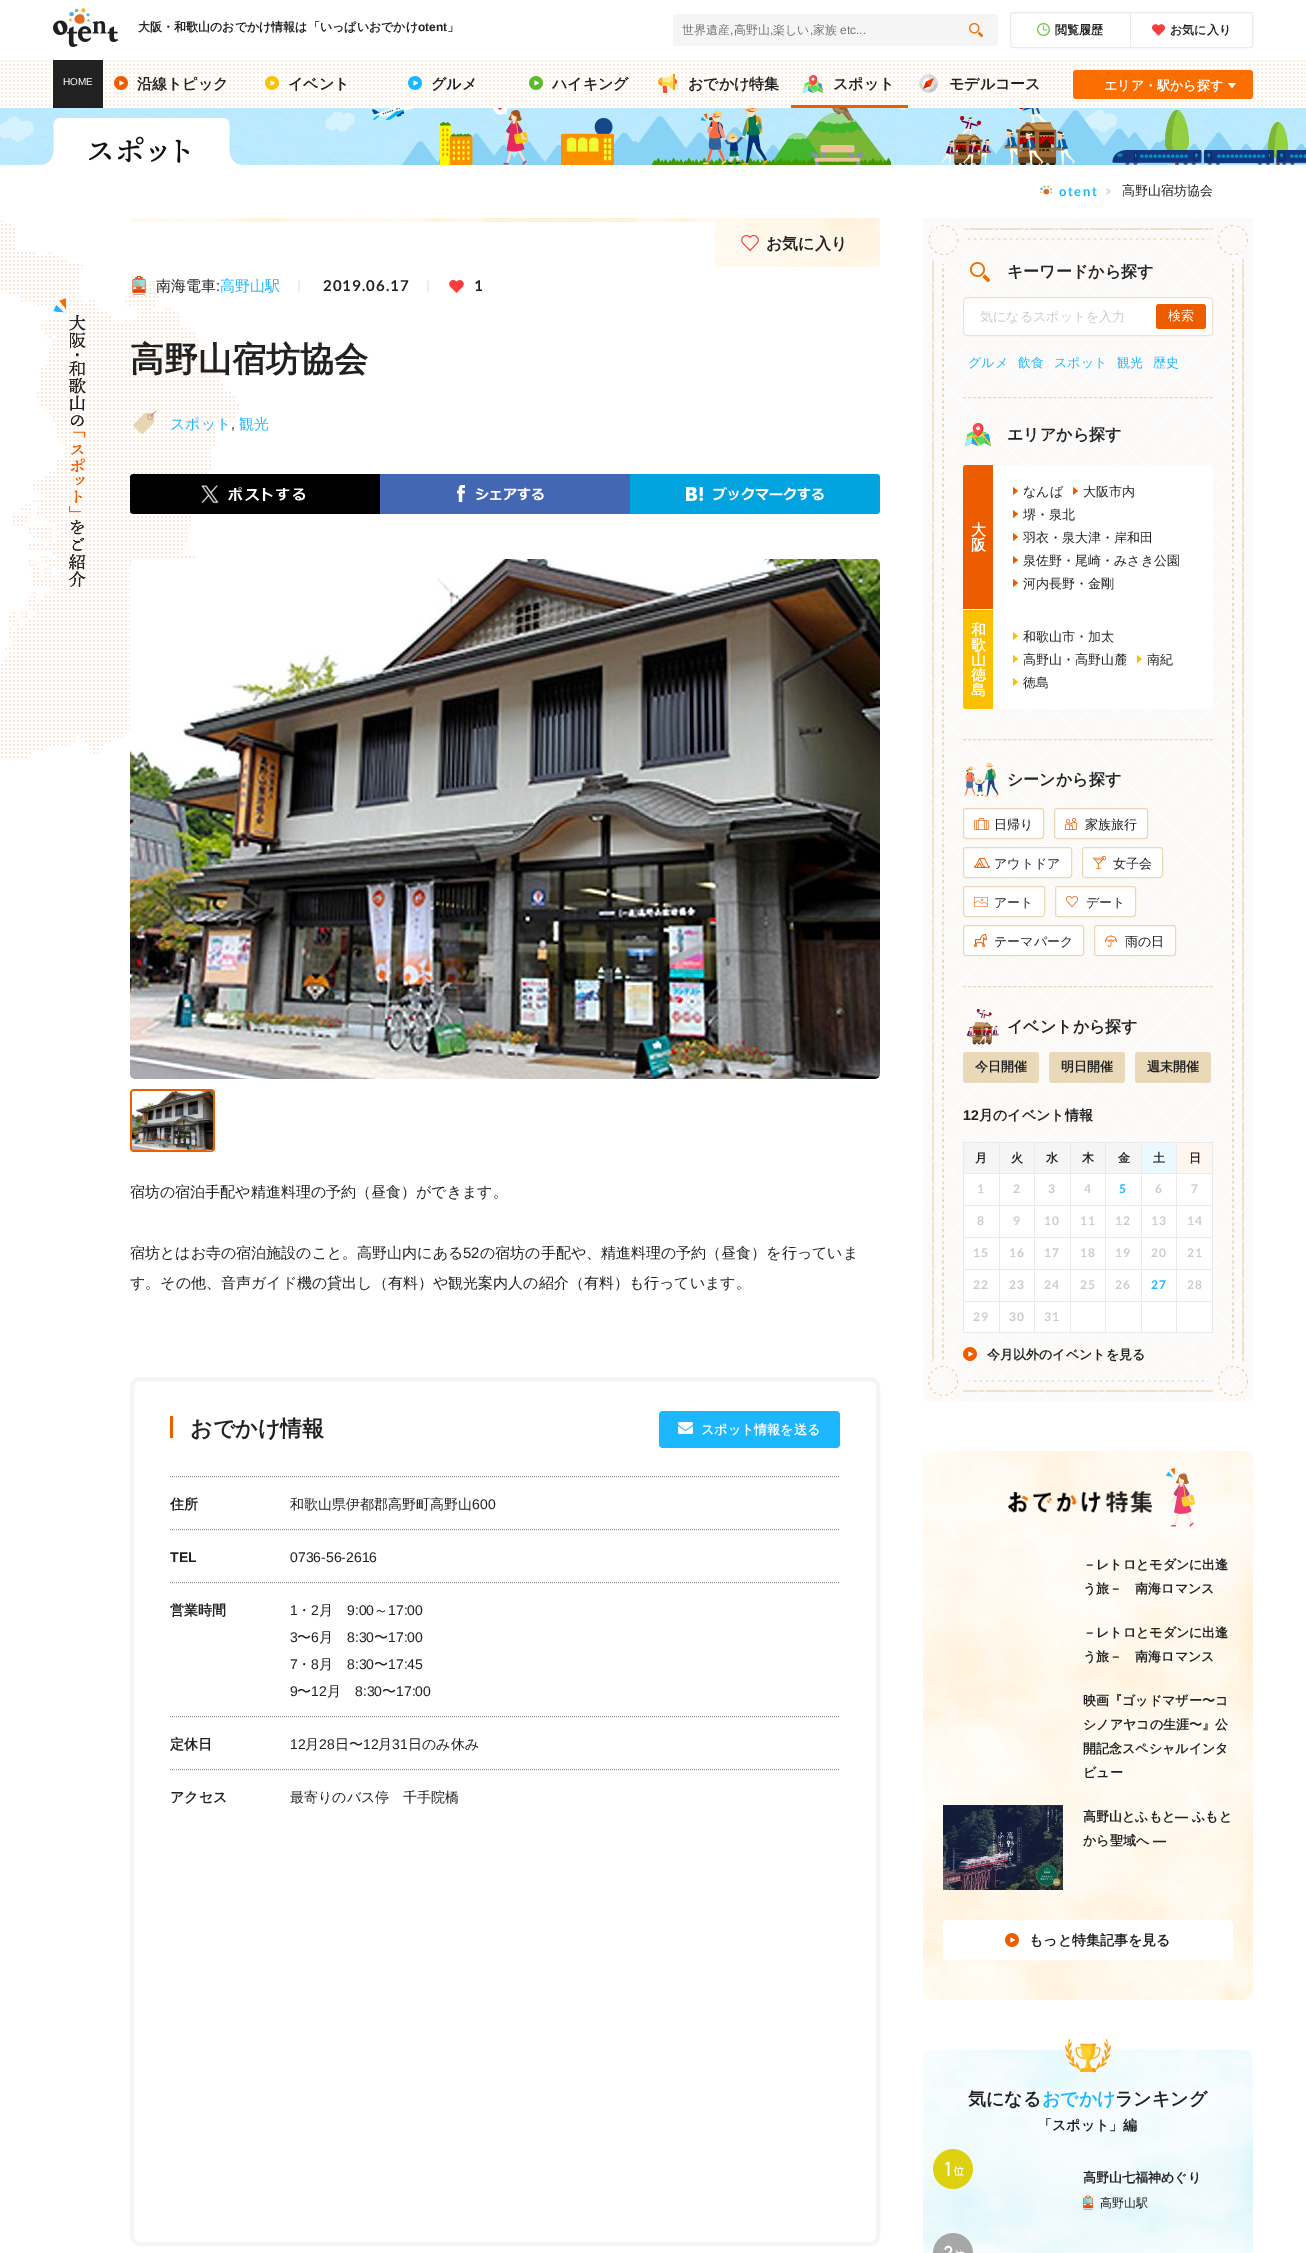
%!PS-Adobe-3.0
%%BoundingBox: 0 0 1306 2253
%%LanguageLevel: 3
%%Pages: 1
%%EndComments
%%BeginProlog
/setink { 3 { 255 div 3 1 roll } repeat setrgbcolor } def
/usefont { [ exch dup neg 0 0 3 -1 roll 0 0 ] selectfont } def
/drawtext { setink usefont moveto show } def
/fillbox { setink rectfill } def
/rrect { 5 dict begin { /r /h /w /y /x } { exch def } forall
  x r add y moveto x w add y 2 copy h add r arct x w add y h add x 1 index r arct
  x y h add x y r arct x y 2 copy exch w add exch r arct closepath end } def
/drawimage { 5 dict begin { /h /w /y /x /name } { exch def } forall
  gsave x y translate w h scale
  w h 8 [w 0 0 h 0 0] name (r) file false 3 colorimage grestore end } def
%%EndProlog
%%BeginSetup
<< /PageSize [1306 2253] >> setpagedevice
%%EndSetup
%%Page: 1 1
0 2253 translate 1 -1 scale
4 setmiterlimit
0 0 1306 2253 255 255 255 fillbox
(assets/img1.rgb) 53 8 65 39 drawimage
(大阪・和歌山のおでかけ情報は「いっぱいおでかけ) 138 31 /WenQuanYiZenHei-Bold 12 33 33 33 drawtext
(otent) 418 31 /LiberationSans-Bold 12 33 33 33 drawtext
(」) 447 31 /WenQuanYiZenHei-Bold 12 33 33 33 drawtext
245 245 245 setink
673 14 325 32 3 rrect fill
(世界遺産 高野山 楽しい 家族) 682 34 /WenQuanYiZenHei-Medium 12 117 117 117 drawtext
(etc...) 840 34 /LiberationSans-Regular 12 117 117 117 drawtext
(,) 730 34 /LiberationSans-Regular 12 117 117 117 drawtext
(,) 770 34 /LiberationSans-Regular 12 117 117 117 drawtext
(,) 810 34 /LiberationSans-Regular 12 117 117 117 drawtext
(assets/img2.rgb) 969 23 14 14 drawimage
234 234 234 setink
1010.5 12.5 242 35 2.5 rrect stroke
1130 13 1 34 234 234 234 fillbox
(assets/img3.rgb) 1037 23 13 13 drawimage
(閲覧履歴) 1055 34 /WenQuanYiZenHei-Bold 12 33 33 33 drawtext
(assets/img4.rgb) 1152 24 13 12 drawimage
(お気に入り) 1170 34 /WenQuanYiZenHei-Bold 12 33 33 33 drawtext
(assets/img5.rgb) 0 60 1306 48 drawimage
53 60 50 48 33 33 33 fillbox
(HOME) 63 85 /LiberationSans-Regular 10 255 255 255 drawtext
(assets/img6.rgb) 114 76 14 14 drawimage
(沿線トピック) 137 89 /WenQuanYiZenHei-Bold 15 33 33 33 drawtext
(assets/img7.rgb) 265 76 14 14 drawimage
(イベント) 288 89 /WenQuanYiZenHei-Bold 15 33 33 33 drawtext
(assets/img8.rgb) 408 76 14 14 drawimage
(グルメ) 431 89 /WenQuanYiZenHei-Bold 15 33 33 33 drawtext
(assets/img9.rgb) 529 76 14 14 drawimage
(ハイキング) 552 89 /WenQuanYiZenHei-Bold 15 33 33 33 drawtext
(assets/img10.rgb) 658 74 19 19 drawimage
(おでかけ特集) 688 89 /WenQuanYiZenHei-Bold 15 33 33 33 drawtext
(assets/img11.rgb) 803 75 20 18 drawimage
(スポット) 833 89 /WenQuanYiZenHei-Bold 15 33 33 33 drawtext
791 105 117 3 237 93 0 fillbox
(assets/img12.rgb) 919 74 19 19 drawimage
(モデルコース) 949 89 /WenQuanYiZenHei-Bold 15 33 33 33 drawtext
(assets/img13.rgb) 1073 70 180 29 drawimage
(エリア・駅から探す) 1104 90 /WenQuanYiZenHei-Bold 13 255 255 255 drawtext
1228 83 moveto 1236 83 lineto 1232 88 lineto closepath fill
(assets/img14.rgb) 0 108 1306 57 drawimage
(assets/img15.rgb) 41 118 201 47 drawimage
(assets/img16.rgb) 1112 150 194 15 drawimage
(assets/img17.rgb) 1040 185 12 10 drawimage
/Lato-Bold 13 usefont
28 183 255 setink
1059 196 moveto 1.5 0 (otent) ashow
221 221 221 setink
1106 189.5 moveto 1107.5 188 lineto 1111 191.5 lineto 1109.5 193 lineto closepath fill
1106 193.5 moveto 1109.5 190 lineto 1111 191.5 lineto 1107.5 195 lineto closepath fill
(高野山宿坊協会) 1122 195 /WenQuanYiZenHei-Medium 13 33 33 33 drawtext
(assets/img18.rgb) 1 220 238 541 drawimage
(assets/img19.rgb) 130 218 585 4 drawimage
(assets/img20.rgb) 715 218 165 49 drawimage
(assets/img21.rgb) 741 235 18 16 drawimage
(お気に入り) 766 249 /WenQuanYiZenHei-Bold 16 33 33 33 drawtext
(assets/img22.rgb) 132 276 14 20 drawimage
(南海電車) 156 291 /WenQuanYiZenHei-Medium 15 33 33 33 drawtext
(:) 216 291 /LiberationSans-Regular 15 33 33 33 drawtext
(高野山駅) 220 291 /WenQuanYiZenHei-Medium 15 28 183 255 drawtext
298 280 2 12 238 238 238 fillbox
/Lato-Bold 15 usefont
33 33 33 setink
323 291 moveto 1 0 (2019.06.17) ashow
427 280 2 12 238 238 238 fillbox
(assets/img23.rgb) 449 280 15 13 drawimage
33 33 33 setink
474 291 moveto 1 0 (1) ashow
(高野山宿坊協会) 130 371 /WenQuanYiZenHei-Bold 34 33 33 33 drawtext
(assets/img24.rgb) 133 411 23 23 drawimage
(スポット) 170 429 /WenQuanYiZenHei-Medium 15 28 183 255 drawtext
(,) 231 429 /LiberationSans-Regular 14 33 33 33 drawtext
(観光) 239 429 /WenQuanYiZenHei-Medium 15 28 183 255 drawtext
(assets/img25.rgb) 130 474 250 40 drawimage
(assets/img26.rgb) 380 474 250 40 drawimage
(assets/img27.rgb) 630 474 250 40 drawimage
(assets/img28.rgb) 130 559 750 520 drawimage
249 239 227 setink
130 1089 85 63 4 rrect fill
(assets/img29.rgb) 130 1091 85 59 drawimage
237 93 0 setink
134 1089 moveto 132 1089 130 1091 130 1093 curveto 130 1148 lineto 130 1150 132 1152 134 1152 curveto 211 1152 lineto 213 1152 215 1150 215 1148 curveto 215 1093 lineto 215 1091 213 1089 211 1089 curveto closepath 133 1091 moveto 132 1092 lineto 132 1149 lineto 133 1150 lineto 199 1150 lineto 215 1150 213 1154 213 1140 curveto 213 1092 lineto 212 1091 lineto closepath eofill
(宿坊の宿泊手配や精進料理の予約（昼食）ができます。) 130 1197 /WenQuanYiZenHei-Medium 15 33 33 33 drawtext
(宿坊とはお寺の宿泊施設のこと。高野山内にある) 130 1258 /WenQuanYiZenHei-Medium 15 33 33 33 drawtext
(52) 463 1258 /LiberationSans-Regular 15 33 33 33 drawtext
(の宿坊の手配や、精進料理の予約（昼食）を行っていま) 480 1258 /WenQuanYiZenHei-Medium 15 33 33 33 drawtext
(す。その他、音声ガイド機の貸出し（有料）や観光案内人の紹介（有料）も行っています。) 130 1288 /WenQuanYiZenHei-Medium 15 33 33 33 drawtext
245 245 245 setink
4 setlinewidth
132 1379 746 865 8 rrect stroke
170 1416 3 22 237 93 0 fillbox
(おでかけ情報) 190 1436 /WenQuanYiZenHei-Bold 22 33 33 33 drawtext
28 183 255 setink
659 1411 181 37 4 rrect fill
(assets/img30.rgb) 678 1422 15 12 drawimage
(スポット情報を送る) 701 1434 /WenQuanYiZenHei-Bold 13 255 255 255 drawtext
153 153 153 setink
1 setlinewidth
[1 1] 0 setdash
170 1476.5 moveto 840 1476.5 lineto stroke
(住所) 170 1509 /WenQuanYiZenHei-Bold 14 33 33 33 drawtext
(和歌山県伊都郡高野町高野山) 290 1509 /WenQuanYiZenHei-Medium 14 33 33 33 drawtext
(600) 472 1509 /LiberationSans-Regular 14 33 33 33 drawtext
153 153 153 setink
170 1529.5 moveto 840 1529.5 lineto stroke
(TEL) 170 1562 /LiberationSans-Bold 14 33 33 33 drawtext
(0736-56-2616) 290 1562 /LiberationSans-Regular 14 33 33 33 drawtext
153 153 153 setink
170 1582.5 moveto 840 1582.5 lineto stroke
(営業時間) 170 1615 /WenQuanYiZenHei-Bold 14 33 33 33 drawtext
(1) 290 1615 /LiberationSans-Regular 14 33 33 33 drawtext
(・) 297 1615 /WenQuanYiZenHei-Medium 14 33 33 33 drawtext
(2) 311 1615 /LiberationSans-Regular 14 33 33 33 drawtext
(月) 319 1615 /WenQuanYiZenHei-Medium 14 33 33 33 drawtext
(9:00) 347 1615 /LiberationSans-Regular 14 33 33 33 drawtext
(～) 374 1615 /WenQuanYiZenHei-Medium 14 33 33 33 drawtext
(17:00) 388 1615 /LiberationSans-Regular 14 33 33 33 drawtext
(3) 290 1642 /LiberationSans-Regular 14 33 33 33 drawtext
(〜) 297 1642 /WenQuanYiZenHei-Medium 14 33 33 33 drawtext
(6) 311 1642 /LiberationSans-Regular 14 33 33 33 drawtext
(月) 319 1642 /WenQuanYiZenHei-Medium 14 33 33 33 drawtext
(8:30) 347 1642 /LiberationSans-Regular 14 33 33 33 drawtext
(〜) 374 1642 /WenQuanYiZenHei-Medium 14 33 33 33 drawtext
(17:00) 388 1642 /LiberationSans-Regular 14 33 33 33 drawtext
(7) 290 1669 /LiberationSans-Regular 14 33 33 33 drawtext
(・) 297 1669 /WenQuanYiZenHei-Medium 14 33 33 33 drawtext
(8) 311 1669 /LiberationSans-Regular 14 33 33 33 drawtext
(月) 319 1669 /WenQuanYiZenHei-Medium 14 33 33 33 drawtext
(8:30) 347 1669 /LiberationSans-Regular 14 33 33 33 drawtext
(〜) 374 1669 /WenQuanYiZenHei-Medium 14 33 33 33 drawtext
(17:45) 388 1669 /LiberationSans-Regular 14 33 33 33 drawtext
(9) 290 1696 /LiberationSans-Regular 14 33 33 33 drawtext
(〜) 297 1696 /WenQuanYiZenHei-Medium 14 33 33 33 drawtext
(12) 311 1696 /LiberationSans-Regular 14 33 33 33 drawtext
(月) 327 1696 /WenQuanYiZenHei-Medium 14 33 33 33 drawtext
(8:30) 355 1696 /LiberationSans-Regular 14 33 33 33 drawtext
(〜) 382 1696 /WenQuanYiZenHei-Medium 14 33 33 33 drawtext
(17:00) 396 1696 /LiberationSans-Regular 14 33 33 33 drawtext
153 153 153 setink
170 1716.5 moveto 840 1716.5 lineto stroke
(定休日) 170 1749 /WenQuanYiZenHei-Bold 14 33 33 33 drawtext
(12) 290 1749 /LiberationSans-Regular 14 33 33 33 drawtext
(月) 305 1749 /WenQuanYiZenHei-Medium 14 33 33 33 drawtext
(28) 319 1749 /LiberationSans-Regular 14 33 33 33 drawtext
(日〜) 335 1749 /WenQuanYiZenHei-Medium 14 33 33 33 drawtext
(12) 363 1749 /LiberationSans-Regular 14 33 33 33 drawtext
(月) 378 1749 /WenQuanYiZenHei-Medium 14 33 33 33 drawtext
(31) 392 1749 /LiberationSans-Regular 14 33 33 33 drawtext
(日のみ休み) 408 1749 /WenQuanYiZenHei-Medium 14 33 33 33 drawtext
153 153 153 setink
170 1769.5 moveto 840 1769.5 lineto stroke
(アクセス) 170 1802 /WenQuanYiZenHei-Bold 14 33 33 33 drawtext
(最寄りのバス停　千手院橋) 290 1802 /WenQuanYiZenHei-Medium 14 33 33 33 drawtext
(assets/img31.rgb) 923 218 330 1183 drawimage
(assets/img32.rgb) 970 262 20 20 drawimage
(キーワードから探す) 1007 277 /WenQuanYiZenHei-Bold 16 33 33 33 drawtext
255 255 255 setink
963.5 297.5 249 38 3.5 rrect gsave fill grestore
240 226 210 setink
[] 0 setdash
stroke
(気になるスポットを入力) 980 321 /WenQuanYiZenHei-Medium 13 204 204 204 drawtext
237 93 0 setink
1156 304 50 25 3 rrect fill
(検索) 1168 320 /WenQuanYiZenHei-Medium 13 255 255 255 drawtext
(グルメ) 968 367 /WenQuanYiZenHei-Medium 13 28 183 255 drawtext
(飲食) 1018 367 /WenQuanYiZenHei-Medium 13 28 183 255 drawtext
(スポット) 1054 367 /WenQuanYiZenHei-Medium 13 28 183 255 drawtext
(観光) 1117 367 /WenQuanYiZenHei-Medium 13 28 183 255 drawtext
(歴史) 1153 367 /WenQuanYiZenHei-Medium 13 28 183 255 drawtext
234 217 185 setink
[3 2.04] 0 setdash
963 397.5 moveto 1213 397.5 lineto stroke
(assets/img33.rgb) 965 423 26 23 drawimage
(エリアから探す) 1007 440 /WenQuanYiZenHei-Bold 16 33 33 33 drawtext
237 93 0 setink
966 465 moveto 993 465 lineto 993 609 lineto 963 609 lineto 963 468 lineto 963 466.5 964.5 465 966 465 curveto closepath fill
(大) 971 535 /WenQuanYiZenHei-Bold 15 255 255 255 drawtext
(阪) 971 550 /WenQuanYiZenHei-Bold 15 255 255 255 drawtext
993 465 moveto 1210 465 lineto 1211.5 465 1213 466.5 1213 468 curveto 1213 610 lineto 993 610 lineto closepath fill
237 93 0 setink
1013 495 moveto 1013 487 lineto 1018 491 lineto closepath fill
(なんば) 1023 496 /WenQuanYiZenHei-Medium 13 33 33 33 drawtext
237 93 0 setink
1073 495 moveto 1073 487 lineto 1078 491 lineto closepath fill
(大阪市内) 1083 496 /WenQuanYiZenHei-Medium 13 33 33 33 drawtext
237 93 0 setink
1013 518 moveto 1013 510 lineto 1018 514 lineto closepath fill
(堺・泉北) 1023 519 /WenQuanYiZenHei-Medium 13 33 33 33 drawtext
237 93 0 setink
1013 541 moveto 1013 533 lineto 1018 537 lineto closepath fill
(羽衣・泉大津・岸和田) 1023 542 /WenQuanYiZenHei-Medium 13 33 33 33 drawtext
237 93 0 setink
1013 564 moveto 1013 556 lineto 1018 560 lineto closepath fill
(泉佐野・尾崎・みさき公園) 1023 565 /WenQuanYiZenHei-Medium 13 33 33 33 drawtext
237 93 0 setink
1013 587 moveto 1013 579 lineto 1018 583 lineto closepath fill
(河内長野・金剛) 1023 588 /WenQuanYiZenHei-Medium 13 33 33 33 drawtext
251 192 0 setink
963 610 moveto 993 610 lineto 993 709 lineto 966 709 lineto 964.5 709 963 707.5 963 706 curveto closepath fill
(和) 971 635 /WenQuanYiZenHei-Bold 15 255 255 255 drawtext
(歌) 971 650 /WenQuanYiZenHei-Bold 15 255 255 255 drawtext
(山) 971 665 /WenQuanYiZenHei-Bold 15 255 255 255 drawtext
(徳) 971 680 /WenQuanYiZenHei-Bold 15 255 255 255 drawtext
(島) 971 695 /WenQuanYiZenHei-Bold 15 255 255 255 drawtext
993 610 moveto 1213 610 lineto 1213 706 lineto 1213 707.5 1211.5 709 1210 709 curveto 993 709 lineto closepath fill
251 192 0 setink
1013 640 moveto 1013 632 lineto 1018 636 lineto closepath fill
(和歌山市・加太) 1023 641 /WenQuanYiZenHei-Medium 13 33 33 33 drawtext
251 192 0 setink
1013 663 moveto 1013 655 lineto 1018 659 lineto closepath fill
(高野山・高野山麓) 1023 664 /WenQuanYiZenHei-Medium 13 33 33 33 drawtext
251 192 0 setink
1137 663 moveto 1137 655 lineto 1142 659 lineto closepath fill
(南紀) 1147 664 /WenQuanYiZenHei-Medium 13 33 33 33 drawtext
251 192 0 setink
1013 686 moveto 1013 678 lineto 1018 682 lineto closepath fill
(徳島) 1023 687 /WenQuanYiZenHei-Medium 13 33 33 33 drawtext
234 217 185 setink
963 739.5 moveto 1213 739.5 lineto stroke
(assets/img34.rgb) 963 762 36 35 drawimage
(シーンから探す) 1007 785 /WenQuanYiZenHei-Bold 16 33 33 33 drawtext
255 255 255 setink
963.5 808.5 80 30 2.5 rrect gsave fill grestore
234 217 185 setink
[] 0 setdash
stroke
(assets/img35.rgb) 974 818 15 12 drawimage
(日帰り) 994 829 /WenQuanYiZenHei-Medium 13 33 33 33 drawtext
255 255 255 setink
1054.5 808.5 93 30 2.5 rrect gsave fill grestore
234 217 185 setink
stroke
(assets/img36.rgb) 1065 818 12 12 drawimage
(家族旅行) 1085 829 /WenQuanYiZenHei-Medium 13 33 33 33 drawtext
255 255 255 setink
963.5 847.5 108 30 2.5 rrect gsave fill grestore
234 217 185 setink
stroke
(assets/img37.rgb) 974 858 16 10 drawimage
(アウトドア) 994 868 /WenQuanYiZenHei-Medium 13 33 33 33 drawtext
255 255 255 setink
1082.5 847.5 80 30 2.5 rrect gsave fill grestore
234 217 185 setink
stroke
(assets/img38.rgb) 1093 856 13 13 drawimage
(女子会) 1113 868 /WenQuanYiZenHei-Medium 13 33 33 33 drawtext
255 255 255 setink
963.5 886.5 81 30 2.5 rrect gsave fill grestore
234 217 185 setink
stroke
(assets/img39.rgb) 974 897 14 10 drawimage
(アート) 994 907 /WenQuanYiZenHei-Medium 13 33 33 33 drawtext
255 255 255 setink
1055.5 886.5 80 30 2.5 rrect gsave fill grestore
234 217 185 setink
stroke
(assets/img40.rgb) 1066 896 12 11 drawimage
(デート) 1086 907 /WenQuanYiZenHei-Medium 13 33 33 33 drawtext
255 255 255 setink
963.5 925.5 120 30 2.5 rrect gsave fill grestore
234 217 185 setink
stroke
(assets/img41.rgb) 974 934 13 13 drawimage
(テーマパーク) 994 946 /WenQuanYiZenHei-Medium 13 33 33 33 drawtext
255 255 255 setink
1094.5 925.5 81 30 2.5 rrect gsave fill grestore
234 217 185 setink
stroke
(assets/img42.rgb) 1105 935 12 12 drawimage
(雨の日) 1125 946 /WenQuanYiZenHei-Medium 13 33 33 33 drawtext
234 217 185 setink
[3 2.04] 0 setdash
963 986.5 moveto 1213 986.5 lineto stroke
(assets/img43.rgb) 963 1009 36 36 drawimage
(イベントから探す) 1007 1032 /WenQuanYiZenHei-Bold 16 33 33 33 drawtext
234 217 185 setink
963 1052 76 31 3 rrect fill
(今日開催) 975 1071 /WenQuanYiZenHei-Bold 13 33 33 33 drawtext
234 217 185 setink
1049 1052 76 31 3 rrect fill
(明日開催) 1061 1071 /WenQuanYiZenHei-Bold 13 33 33 33 drawtext
234 217 185 setink
1135 1052 76 31 3 rrect fill
(週末開催) 1147 1071 /WenQuanYiZenHei-Bold 13 33 33 33 drawtext
(12) 963 1120 /LiberationSans-Bold 14 33 33 33 drawtext
(月のイベント情報) 979 1120 /WenQuanYiZenHei-Bold 14 33 33 33 drawtext
963 1142 250 1 234 234 234 fillbox
963 1142 1 191 234 234 234 fillbox
964 1143 35 30 245 245 245 fillbox
1212 1142 1 191 234 234 234 fillbox
1176 1332 37 1 234 234 234 fillbox
1176 1301 1 32 234 234 234 fillbox
1176 1301 37 1 234 234 234 fillbox
1176 1269 1 33 234 234 234 fillbox
1176 1269 37 1 234 234 234 fillbox
1176 1237 1 33 234 234 234 fillbox
1176 1237 37 1 234 234 234 fillbox
1176 1205 1 33 234 234 234 fillbox
1176 1205 37 1 234 234 234 fillbox
1176 1173 1 33 234 234 234 fillbox
1176 1173 37 1 234 234 234 fillbox
1176 1142 1 32 234 234 234 fillbox
1141 1332 36 1 234 234 234 fillbox
1141 1301 1 32 234 234 234 fillbox
1141 1301 36 1 234 234 234 fillbox
1141 1269 1 33 234 234 234 fillbox
1141 1269 36 1 234 234 234 fillbox
1141 1237 1 33 234 234 234 fillbox
1141 1237 36 1 234 234 234 fillbox
1141 1205 1 33 234 234 234 fillbox
1141 1205 36 1 234 234 234 fillbox
1141 1173 1 33 234 234 234 fillbox
1141 1173 36 1 234 234 234 fillbox
1141 1142 1 32 234 234 234 fillbox
1105 1332 37 1 234 234 234 fillbox
1105 1301 1 32 234 234 234 fillbox
1105 1301 37 1 234 234 234 fillbox
1105 1269 1 33 234 234 234 fillbox
1105 1269 37 1 234 234 234 fillbox
1105 1237 1 33 234 234 234 fillbox
1105 1237 37 1 234 234 234 fillbox
1105 1205 1 33 234 234 234 fillbox
1105 1205 37 1 234 234 234 fillbox
1105 1173 1 33 234 234 234 fillbox
1105 1173 37 1 234 234 234 fillbox
1105 1142 1 32 234 234 234 fillbox
1070 1332 36 1 234 234 234 fillbox
1070 1301 1 32 234 234 234 fillbox
1070 1301 36 1 234 234 234 fillbox
1070 1269 1 33 234 234 234 fillbox
1070 1269 36 1 234 234 234 fillbox
1070 1237 1 33 234 234 234 fillbox
1070 1237 36 1 234 234 234 fillbox
1070 1205 1 33 234 234 234 fillbox
1070 1205 36 1 234 234 234 fillbox
1070 1173 1 33 234 234 234 fillbox
1070 1173 36 1 234 234 234 fillbox
1070 1142 1 32 234 234 234 fillbox
1034 1332 37 1 234 234 234 fillbox
1034 1301 1 32 234 234 234 fillbox
1034 1301 37 1 234 234 234 fillbox
1034 1269 1 33 234 234 234 fillbox
1034 1269 37 1 234 234 234 fillbox
1034 1237 1 33 234 234 234 fillbox
1034 1237 37 1 234 234 234 fillbox
1034 1205 1 33 234 234 234 fillbox
1034 1205 37 1 234 234 234 fillbox
1034 1173 1 33 234 234 234 fillbox
1034 1173 37 1 234 234 234 fillbox
1034 1142 1 32 234 234 234 fillbox
999 1332 36 1 234 234 234 fillbox
999 1301 1 32 234 234 234 fillbox
999 1301 36 1 234 234 234 fillbox
999 1269 1 33 234 234 234 fillbox
999 1269 36 1 234 234 234 fillbox
999 1237 1 33 234 234 234 fillbox
999 1237 36 1 234 234 234 fillbox
999 1205 1 33 234 234 234 fillbox
999 1205 36 1 234 234 234 fillbox
999 1173 1 33 234 234 234 fillbox
999 1173 36 1 234 234 234 fillbox
999 1142 1 32 234 234 234 fillbox
963 1173 37 1 234 234 234 fillbox
(月) 975 1162 /WenQuanYiZenHei-Bold 12 33 33 33 drawtext
1000 1143 34 30 245 245 245 fillbox
(火) 1011 1162 /WenQuanYiZenHei-Bold 12 33 33 33 drawtext
1035 1143 35 30 245 245 245 fillbox
(水) 1046 1162 /WenQuanYiZenHei-Bold 12 33 33 33 drawtext
1071 1143 34 30 245 245 245 fillbox
(木) 1082 1162 /WenQuanYiZenHei-Bold 12 33 33 33 drawtext
1106 1143 35 30 245 245 245 fillbox
(金) 1118 1162 /WenQuanYiZenHei-Bold 12 33 33 33 drawtext
1142 1143 34 30 233 249 255 fillbox
(土) 1153 1162 /WenQuanYiZenHei-Bold 12 33 33 33 drawtext
1177 1143 35 30 255 246 240 fillbox
(日) 1189 1162 /WenQuanYiZenHei-Bold 12 33 33 33 drawtext
964 1174 35 31 255 255 255 fillbox
963 1205 37 1 234 234 234 fillbox
/Lato-Bold 12 usefont
204 204 204 setink
977 1193 moveto 1 0 (1) ashow
1000 1174 34 31 255 255 255 fillbox
204 204 204 setink
1013 1193 moveto 1 0 (2) ashow
1035 1174 35 31 255 255 255 fillbox
204 204 204 setink
1048 1193 moveto 1 0 (3) ashow
1071 1174 34 31 255 255 255 fillbox
204 204 204 setink
1084 1193 moveto 1 0 (4) ashow
1106 1174 35 31 255 255 255 fillbox
28 183 255 setink
1119 1193 moveto 1 0 (5) ashow
1142 1174 34 31 255 255 255 fillbox
204 204 204 setink
1155 1193 moveto 1 0 (6) ashow
1177 1174 35 31 255 255 255 fillbox
204 204 204 setink
1191 1193 moveto 1 0 (7) ashow
964 1206 35 31 255 255 255 fillbox
963 1237 37 1 234 234 234 fillbox
204 204 204 setink
977 1225 moveto 1 0 (8) ashow
1000 1206 34 31 255 255 255 fillbox
204 204 204 setink
1013 1225 moveto 1 0 (9) ashow
1035 1206 35 31 255 255 255 fillbox
204 204 204 setink
1044 1225 moveto 1 0 (10) ashow
1071 1206 34 31 255 255 255 fillbox
204 204 204 setink
1080 1225 moveto 1 0 (11) ashow
1106 1206 35 31 255 255 255 fillbox
204 204 204 setink
1115 1225 moveto 1 0 (12) ashow
1142 1206 34 31 255 255 255 fillbox
204 204 204 setink
1151 1225 moveto 1 0 (13) ashow
1177 1206 35 31 255 255 255 fillbox
204 204 204 setink
1187 1225 moveto 1 0 (14) ashow
964 1238 35 31 255 255 255 fillbox
963 1269 37 1 234 234 234 fillbox
204 204 204 setink
973 1257 moveto 1 0 (15) ashow
1000 1238 34 31 255 255 255 fillbox
204 204 204 setink
1009 1257 moveto 1 0 (16) ashow
1035 1238 35 31 255 255 255 fillbox
204 204 204 setink
1044 1257 moveto 1 0 (17) ashow
1071 1238 34 31 255 255 255 fillbox
204 204 204 setink
1080 1257 moveto 1 0 (18) ashow
1106 1238 35 31 255 255 255 fillbox
204 204 204 setink
1115 1257 moveto 1 0 (19) ashow
1142 1238 34 31 255 255 255 fillbox
204 204 204 setink
1151 1257 moveto 1 0 (20) ashow
1177 1238 35 31 255 255 255 fillbox
204 204 204 setink
1187 1257 moveto 1 0 (21) ashow
964 1270 35 31 255 255 255 fillbox
963 1301 37 1 234 234 234 fillbox
204 204 204 setink
973 1289 moveto 1 0 (22) ashow
1000 1270 34 31 255 255 255 fillbox
204 204 204 setink
1009 1289 moveto 1 0 (23) ashow
1035 1270 35 31 255 255 255 fillbox
204 204 204 setink
1044 1289 moveto 1 0 (24) ashow
1071 1270 34 31 255 255 255 fillbox
204 204 204 setink
1080 1289 moveto 1 0 (25) ashow
1106 1270 35 31 255 255 255 fillbox
204 204 204 setink
1115 1289 moveto 1 0 (26) ashow
1142 1270 34 31 255 255 255 fillbox
28 183 255 setink
1151 1289 moveto 1 0 (27) ashow
1177 1270 35 31 255 255 255 fillbox
204 204 204 setink
1187 1289 moveto 1 0 (28) ashow
964 1302 35 30 255 255 255 fillbox
963 1332 37 1 234 234 234 fillbox
204 204 204 setink
973 1321 moveto 1 0 (29) ashow
1000 1302 34 30 255 255 255 fillbox
204 204 204 setink
1009 1321 moveto 1 0 (30) ashow
1035 1302 35 30 255 255 255 fillbox
204 204 204 setink
1044 1321 moveto 1 0 (31) ashow
1071 1302 34 30 255 255 255 fillbox
1106 1302 35 30 255 255 255 fillbox
1142 1302 34 30 255 255 255 fillbox
1177 1302 35 30 255 255 255 fillbox
(assets/img44.rgb) 963 1347 14 14 drawimage
(今月以外のイベントを見る) 987 1359 /WenQuanYiZenHei-Bold 13 33 33 33 drawtext
(assets/img45.rgb) 923 1451 330 549 drawimage
(assets/img46.rgb) 1008 1491 144 22 drawimage
(assets/img47.rgb) 1166 1468 29 59 drawimage
(－レトロとモダンに出逢) 1083 1569 /WenQuanYiZenHei-Bold 13 33 33 33 drawtext
(う旅－　南海ロマンス) 1083 1593 /WenQuanYiZenHei-Bold 13 33 33 33 drawtext
(－レトロとモダンに出逢) 1083 1637 /WenQuanYiZenHei-Bold 13 33 33 33 drawtext
(う旅－　南海ロマンス) 1083 1661 /WenQuanYiZenHei-Bold 13 33 33 33 drawtext
(映画『ゴッドマザー〜コ) 1083 1705 /WenQuanYiZenHei-Bold 13 33 33 33 drawtext
(シノアヤコの生涯〜』公) 1083 1729 /WenQuanYiZenHei-Bold 13 33 33 33 drawtext
(開記念スペシャルインタ) 1083 1753 /WenQuanYiZenHei-Bold 13 33 33 33 drawtext
(ビュー) 1083 1777 /WenQuanYiZenHei-Bold 13 33 33 33 drawtext
(assets/img48.rgb) 943 1805 120 85 drawimage
(高野山とふもと) 1083 1821 /WenQuanYiZenHei-Bold 13 33 33 33 drawtext
(―) 1175 1821 /LiberationSans-Bold 13 33 33 33 drawtext
(ふもと) 1192 1821 /WenQuanYiZenHei-Bold 13 33 33 33 drawtext
(から聖域へ) 1083 1845 /WenQuanYiZenHei-Bold 13 33 33 33 drawtext
(―) 1153 1845 /LiberationSans-Bold 13 33 33 33 drawtext
255 255 255 setink
943 1920 290 40 5 rrect fill
(assets/img49.rgb) 1005 1933 14 14 drawimage
(もっと特集記事を見る) 1029 1945 /WenQuanYiZenHei-Bold 14 33 33 33 drawtext
(assets/img50.rgb) 923 2050 330 203 drawimage
(assets/img51.rgb) 1065 2039 46 33 drawimage
(気になる) 968 2105 /WenQuanYiZenHei-Bold 18 33 33 33 drawtext
(おでかけ) 1042 2105 /WenQuanYiZenHei-Bold 18 28 183 255 drawtext
(ランキング) 1115 2105 /WenQuanYiZenHei-Bold 18 33 33 33 drawtext
(「スポット」編) 1038 2130 /WenQuanYiZenHei-Bold 14 33 33 33 drawtext
(assets/img52.rgb) 933 2149 40 40 drawimage
(高野山七福神めぐり) 1083 2182 /WenQuanYiZenHei-Bold 13 33 33 33 drawtext
(assets/img53.rgb) 1083 2195 10 16 drawimage
(高野山駅) 1100 2207 /WenQuanYiZenHei-Medium 12 33 33 33 drawtext
(assets/img54.rgb) 933 2233 40 20 drawimage
(assets/img55.rgb) 53 298 33 289 drawimage
showpage
%%EOF
